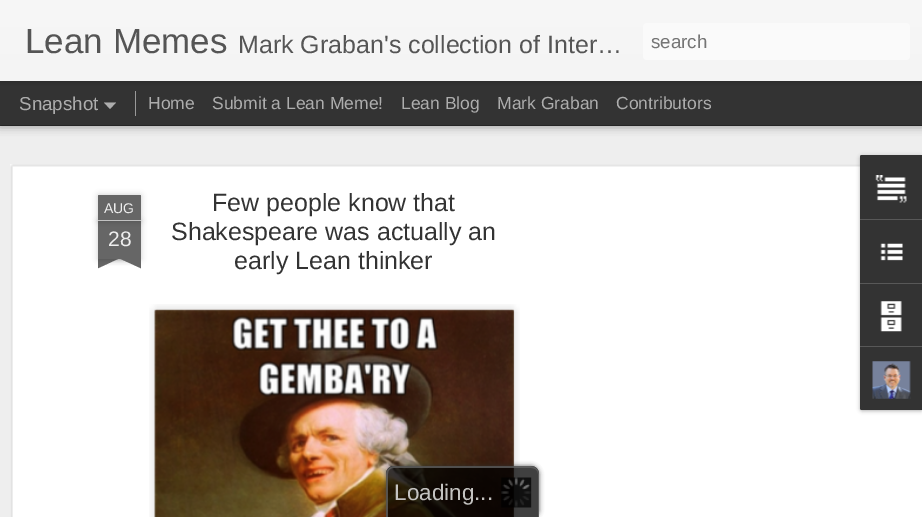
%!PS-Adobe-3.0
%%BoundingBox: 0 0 922 517
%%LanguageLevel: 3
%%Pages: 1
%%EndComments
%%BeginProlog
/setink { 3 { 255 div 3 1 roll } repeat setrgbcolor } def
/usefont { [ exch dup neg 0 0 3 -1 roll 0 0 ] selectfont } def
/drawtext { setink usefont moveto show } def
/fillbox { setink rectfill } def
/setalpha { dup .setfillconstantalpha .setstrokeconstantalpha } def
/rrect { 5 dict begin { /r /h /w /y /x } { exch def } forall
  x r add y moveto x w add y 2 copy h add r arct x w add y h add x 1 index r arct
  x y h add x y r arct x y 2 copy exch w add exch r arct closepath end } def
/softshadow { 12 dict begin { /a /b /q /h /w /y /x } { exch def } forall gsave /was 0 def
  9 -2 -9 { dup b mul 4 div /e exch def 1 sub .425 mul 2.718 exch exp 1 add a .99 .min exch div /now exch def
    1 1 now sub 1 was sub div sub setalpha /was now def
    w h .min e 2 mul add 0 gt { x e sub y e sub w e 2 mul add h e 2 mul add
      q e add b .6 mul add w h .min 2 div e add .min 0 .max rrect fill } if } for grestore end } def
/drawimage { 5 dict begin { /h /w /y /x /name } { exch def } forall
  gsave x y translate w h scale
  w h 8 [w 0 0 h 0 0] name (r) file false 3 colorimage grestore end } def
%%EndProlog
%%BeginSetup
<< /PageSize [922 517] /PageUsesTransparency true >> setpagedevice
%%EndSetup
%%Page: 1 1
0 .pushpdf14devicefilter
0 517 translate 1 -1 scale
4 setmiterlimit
0 0 922 517 51 51 51 fillbox
0 126 922 391 238 238 238 fillbox
0 0 0 setink
0 81 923 44 0 5 0.5 softshadow
0 81 922 44 51 51 51 fillbox
0 0 0 setink
0 0 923 81 0 3 0.3 softshadow
gsave 0 0 moveto 922 0 lineto 922 81 lineto 0 81 lineto closepath clip newpath
<< /ShadingType 2 /ColorSpace /DeviceRGB /Coords [0 0 0 81] /Extend [true true] /Function << /FunctionType 2 /Domain [0 1] /C0 [0.969 0.969 0.969] /C1 [0.957 0.957 0.957] /N 1 >> >> shfill grestore
(Lean Memes) 25 53 /LiberationSans-Regular 35 85 85 85 drawtext
(Mark Graban's collection of Inter…) 238 53 /LiberationSans-Regular 25 85 85 85 drawtext
250 250 250 setink
643 23 267 37 4 rrect fill
(search) 651 48 /LiberationSans-Regular 18.75 117 117 117 drawtext
(Snapshot) 19 110 /LiberationSans-Regular 18.75 173 173 173 drawtext
104 102.5 moveto 116 102.5 lineto 110 109 lineto closepath fill
135 91 1 25 153 153 153 fillbox
(Home) 148 109 /LiberationSans-Regular 17.5 173 173 173 drawtext
(Submit a Lean Meme!) 212 109 /LiberationSans-Regular 17.5 173 173 173 drawtext
(Lean Blog) 401 109 /LiberationSans-Regular 17.5 173 173 173 drawtext
(Mark Graban) 497 109 /LiberationSans-Regular 17.5 173 173 173 drawtext
(Contributors) 616 109 /LiberationSans-Regular 17.5 173 173 173 drawtext
10 164 912 353 255 255 255 fillbox
(assets/img1.rgb) 10 164 850 353 drawimage
0 0 0 setink
98 221 43 38 0 3 0.2 softshadow
98 221 43 38 102 102 102 fillbox
0 0 0 setink
98 195 43 26 1 3 0.2 softshadow
102 102 102 setink
99 195 moveto 140 195 lineto 140.5 195 141 195.5 141 196 curveto 141 221 lineto 98 221 lineto 98 196 lineto 98 195.5 98.5 195 99 195 curveto closepath fill
98 220 43 1 194 194 194 fillbox
(AUG) 104 213 /LiberationSans-Regular 14 238 238 238 drawtext
(28) 108 246 /LiberationSans-Regular 21 238 238 238 drawtext
gsave
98 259 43 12 rectclip
0 0 0 setink
86 246 63 13 0 3 0.2 softshadow
grestore
gsave
98 259 43 12 rectclip
102 102 102 setink
87 260 moveto 143 234 lineto 148 245 lineto 92 271 lineto closepath fill
grestore
gsave
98 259 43 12 rectclip
0 0 0 setink
90 246 63 13 0 3 0.2 softshadow
grestore
gsave
98 259 43 12 rectclip
102 102 102 setink
96 234 moveto 152 260 lineto 147 271 lineto 90 245 lineto closepath fill
grestore
(Few people know that) 212 211 /LiberationSans-Regular 25 51 51 51 drawtext
(Shakespeare was actually an) 171 240 /LiberationSans-Regular 25 51 51 51 drawtext
(early Lean thinker) 234 269 /LiberationSans-Regular 25 51 51 51 drawtext
(assets/img2.rgb) 149 304 371 213 drawimage
(assets/img3.rgb) 154 309 361 208 drawimage
0 0 0 setink
860 156 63 255 2.5 2 0.3 softshadow
51 51 51 setink
862.5 155 moveto 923 155 lineto 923 410 lineto 862.5 410 lineto 861 410 860 409 860 407.5 curveto 860 157.5 lineto 860 156 861 155 862.5 155 curveto closepath fill
862.5 155 moveto 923 155 lineto 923 219 lineto 860 219 lineto 860 157.5 lineto 860 156 861 155 862.5 155 curveto closepath fill
(assets/img4.rgb) 875 175 32 28 drawimage
860 219 62 1 88 88 88 fillbox
(assets/img5.rgb) 880 243 23 18 drawimage
860 283 62 1 88 88 88 fillbox
(assets/img6.rgb) 880 301 22 31 drawimage
51 51 51 setink
860 346 moveto 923 346 lineto 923 410 lineto 862.5 410 lineto 861 410 860 409 860 407.5 curveto closepath fill
860 346 62 1 88 88 88 fillbox
(assets/img7.rgb) 872 361 39 38 drawimage
gsave
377 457 moveto 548 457 lineto 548 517 lineto 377 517 lineto closepath 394 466 moveto 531 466 lineto 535.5 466 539 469.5 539 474 curveto 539 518 lineto 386 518 lineto 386 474 lineto 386 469.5 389.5 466 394 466 curveto closepath eoclip newpath
51 51 51 setink
386 466 153 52 8 2.5 0.75 softshadow
grestore
0.75 setalpha
0 0 0 setink
394 466 moveto 531 466 lineto 535.5 466 539 469.5 539 474 curveto 539 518 lineto 386 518 lineto 386 474 lineto 386 469.5 389.5 466 394 466 curveto closepath fill
102 102 102 setink
394 466 moveto 531 466 lineto 535 466 539 470 539 474 curveto 539 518 lineto 386 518 lineto 386 474 lineto 386 470 390 466 394 466 curveto closepath 394 468 moveto 531 468 lineto 535 468 538 470 538 474 curveto 538 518 lineto 388 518 lineto 388 474 lineto 388 470 390 468 394 468 curveto closepath eofill
1 setalpha
(assets/img8.rgb) 501 477 31 31 drawimage
(Loading) 394 500 /LiberationSans-Regular 22.5 196 195 193 drawtext
(...) 474 500 /LiberationSans-Regular 22.5 196 195 193 drawtext
.poppdf14devicefilter showpage
%%EOF
